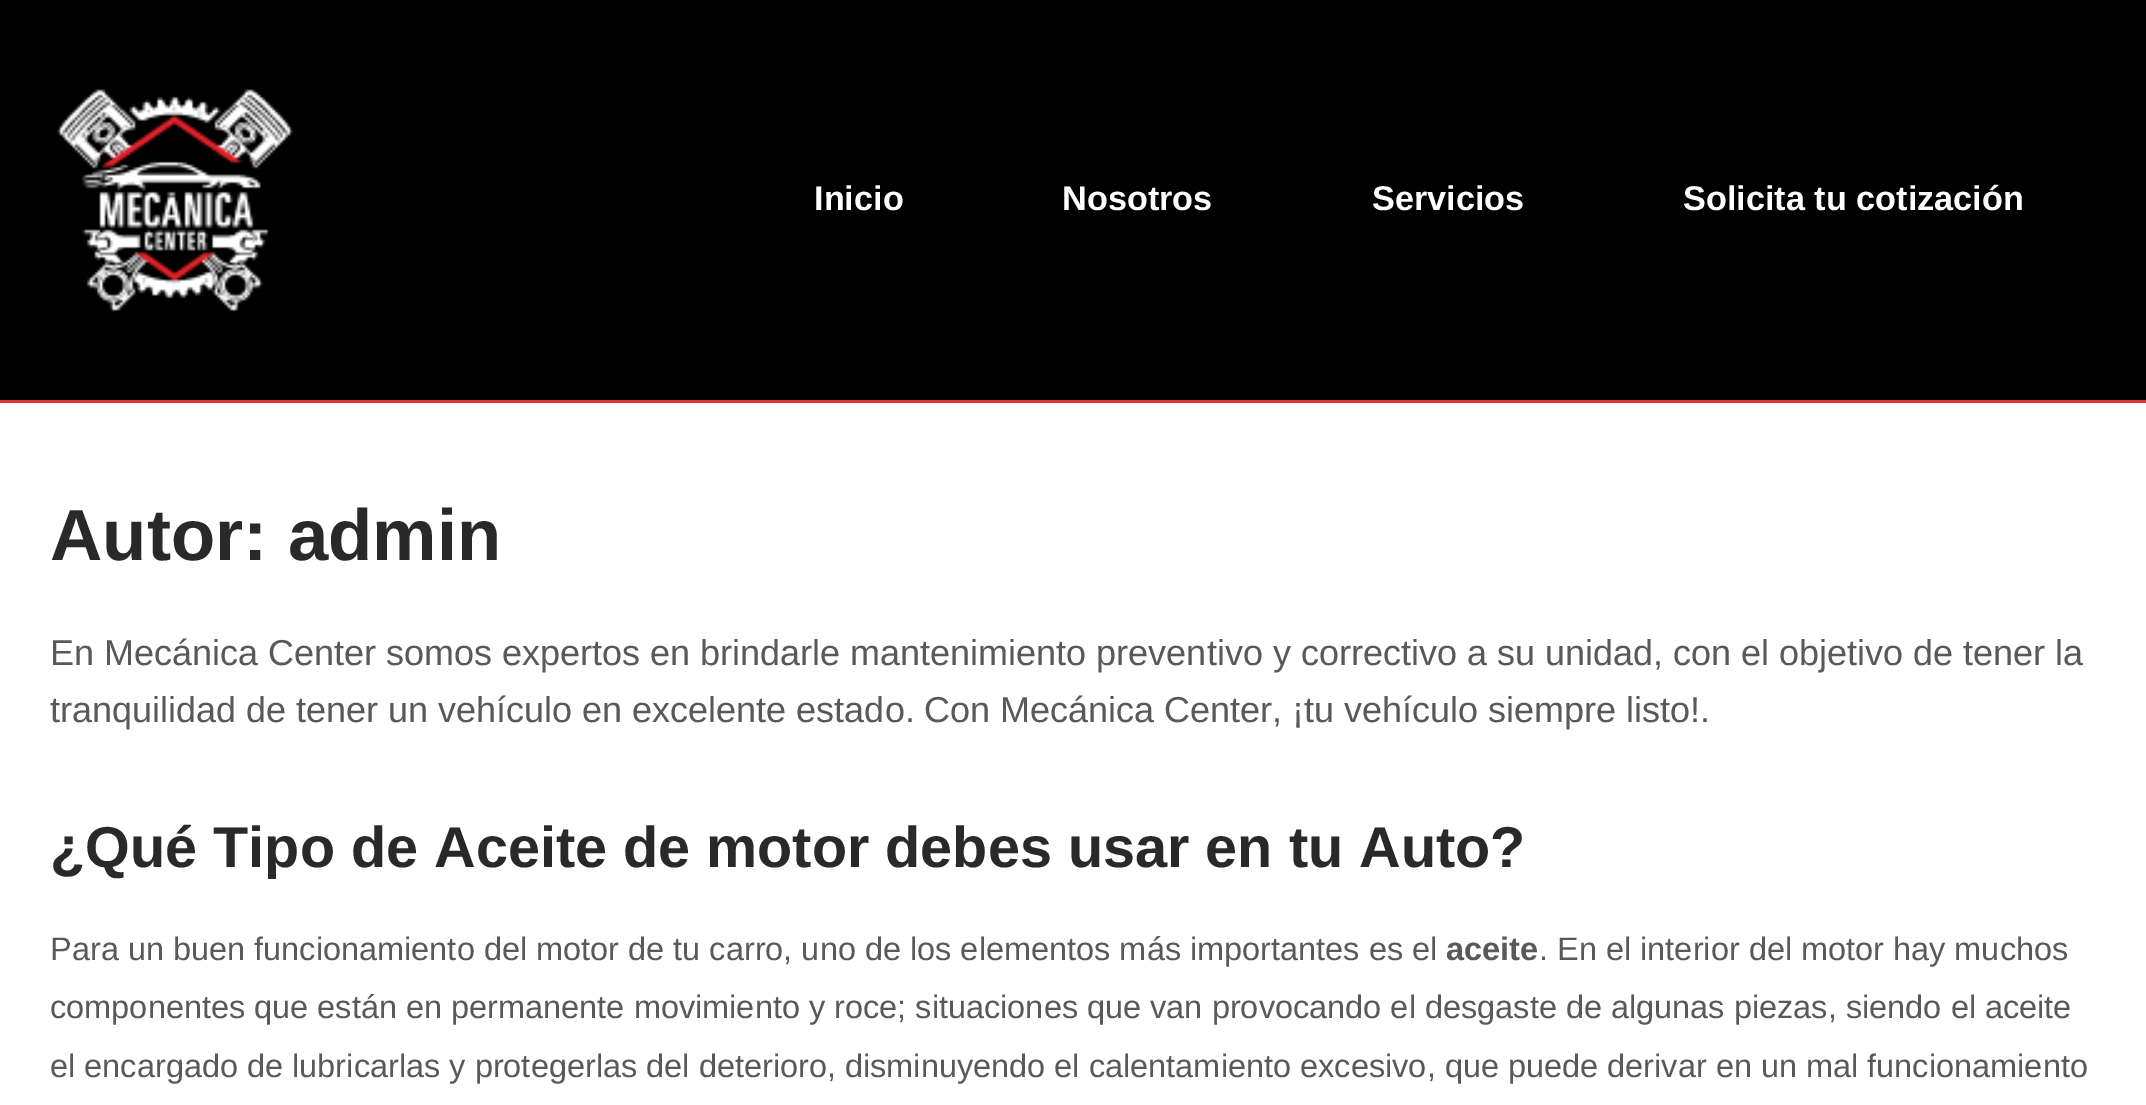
%!PS-Adobe-3.0
%%BoundingBox: 0 0 2146 1105
%%LanguageLevel: 3
%%Pages: 1
%%EndComments
%%BeginProlog
/setink { 3 { 255 div 3 1 roll } repeat setrgbcolor } def
/usefont { [ exch dup neg 0 0 3 -1 roll 0 0 ] selectfont } def
/drawtext { setink usefont moveto show } def
/fillbox { setink rectfill } def
/drawimage { 5 dict begin { /h /w /y /x /name } { exch def } forall
  gsave x y translate w h scale
  w h 8 [w 0 0 h 0 0] name (r) file false 3 colorimage grestore end } def
%%EndProlog
%%BeginSetup
<< /PageSize [2146 1105] >> setpagedevice
%%EndSetup
%%Page: 1 1
0 1105 translate 1 -1 scale
4 setmiterlimit
0 0 2146 1105 255 255 255 fillbox
0 0 2146 400 0 0 0 fillbox
0 400 2146 3 221 51 51 fillbox
(assets/img1.rgb) 57 89 237 224 drawimage
(Inicio) 814 210 /LiberationSans-Bold 34.25 255 255 255 drawtext
(Nosotros) 1062 210 /LiberationSans-Bold 34.25 255 255 255 drawtext
(Servicios) 1372 210 /LiberationSans-Bold 34.25 255 255 255 drawtext
(Solicita tu cotización) 1683 210 /LiberationSans-Bold 34.25 255 255 255 drawtext
(Autor: admin) 50 560 /LiberationSans-Bold 72.5 41 41 41 drawtext
(En Mecánica Center somos expertos en brindarle mantenimiento preventivo y correctivo a su unidad, con el objetivo de tener la) 50 665 /LiberationSans-Regular 36 89 89 89 drawtext
(tranquilidad de tener un vehículo en excelente estado.) 50 722 /LiberationSans-Regular 36 89 89 89 drawtext
(Con Mecánica Center, ¡tu vehículo siempre listo!.) 924 722 /LiberationSans-Regular 36 89 89 89 drawtext
(¿Qué Tipo de Aceite de motor debes usar en tu Auto?) 50 867 /LiberationSans-Bold 57.6 41 41 41 drawtext
(Para un buen funcionamiento del motor de tu carro, uno de los elementos más importantes es el) 50 960 /LiberationSans-Regular 32.5 89 89 89 drawtext
(aceite) 1446 960 /LiberationSans-Bold 32.5 89 89 89 drawtext
(. En el interior del motor hay muchos) 1539 960 /LiberationSans-Regular 32.5 89 89 89 drawtext
(componentes que están en permanente movimiento y roce; situaciones que van provocando el desgaste de algunas piezas, siendo el aceite) 50 1018 /LiberationSans-Regular 32.5 89 89 89 drawtext
(el encargado de lubricarlas y protegerlas del deterioro, disminuyendo el calentamiento excesivo, que puede derivar en un mal funcionamiento) 50 1077 /LiberationSans-Regular 32.5 89 89 89 drawtext
showpage
%%EOF
